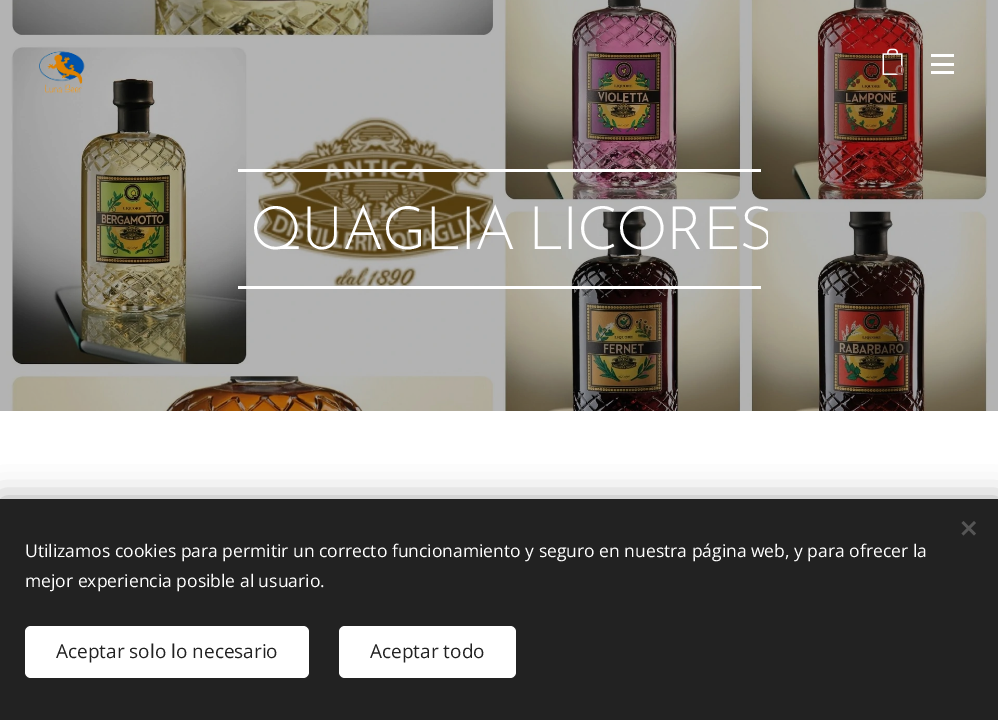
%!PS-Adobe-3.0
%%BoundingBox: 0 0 998 720
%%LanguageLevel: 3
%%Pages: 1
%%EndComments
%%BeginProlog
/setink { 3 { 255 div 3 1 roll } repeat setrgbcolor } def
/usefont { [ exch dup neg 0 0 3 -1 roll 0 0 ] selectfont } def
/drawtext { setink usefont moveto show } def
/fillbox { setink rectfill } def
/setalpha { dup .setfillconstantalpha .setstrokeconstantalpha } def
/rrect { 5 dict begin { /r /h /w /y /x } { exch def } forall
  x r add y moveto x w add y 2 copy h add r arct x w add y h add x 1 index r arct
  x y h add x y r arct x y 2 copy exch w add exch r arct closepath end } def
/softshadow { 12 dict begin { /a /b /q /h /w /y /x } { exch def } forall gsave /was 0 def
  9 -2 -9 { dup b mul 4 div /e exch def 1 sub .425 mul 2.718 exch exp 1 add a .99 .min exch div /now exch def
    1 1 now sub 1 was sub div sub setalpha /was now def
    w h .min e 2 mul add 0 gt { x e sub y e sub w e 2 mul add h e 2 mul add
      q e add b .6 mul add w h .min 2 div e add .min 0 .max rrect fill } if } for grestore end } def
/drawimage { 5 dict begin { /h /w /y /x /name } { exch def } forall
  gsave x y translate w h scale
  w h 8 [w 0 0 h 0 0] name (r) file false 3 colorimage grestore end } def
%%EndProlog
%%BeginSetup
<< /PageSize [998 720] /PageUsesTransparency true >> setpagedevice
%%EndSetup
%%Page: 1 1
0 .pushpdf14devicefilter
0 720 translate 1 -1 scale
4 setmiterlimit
0 0 998 720 255 255 255 fillbox
(assets/img3.rgb) 0 0 998 411 drawimage
(assets/img1.rgb) 39 51 46 43 drawimage
(assets/img2.rgb) 882 48 21 27 drawimage
(0) 895 75 /Montserrat-Bold 14 151 96 90 drawtext
931 63 23 3 255 255 255 fillbox
931 54 23 3 255 255 255 fillbox
931 71 23 3 255 255 255 fillbox
238 169 523 3 255 255 255 fillbox
238 286 523 3 255 255 255 fillbox
gsave
231 163 537 132 rectclip
/JosefinSans-Light 60 usefont
250 249 moveto -4 0 32 -1.75 0 (QUAGLIA LICORES) awidthshow
grestore
0 0 0 setink
0 499 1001 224 0 15.5 0.33 softshadow
0 499 998 221 34 34 34 fillbox
85 85 85 setink
961.5 533.5 moveto 974 521 lineto 976 523 lineto 963.5 535.5 lineto closepath fill
963.5 521 moveto 976 533.5 lineto 974 535.5 lineto 961.5 523 lineto closepath fill
(Utilizamos cookies para permitir un correcto funcionamiento y seguro en nuestra página web, y para ofrecer la) 25 557 /OpenSans-Regular 17.5 255 255 255 drawtext
(mejor experiencia posible al usuario.) 25 587 /OpenSans-Regular 17.5 255 255 255 drawtext
25 626 284 52 6 rrect fill
(Aceptar solo lo necesario) 56 658 /OpenSans-Regular 19 34 34 34 drawtext
255 255 255 setink
339 626 177 52 6 rrect fill
(Aceptar todo) 370 658 /OpenSans-Regular 19 34 34 34 drawtext
.poppdf14devicefilter showpage
%%EOF
